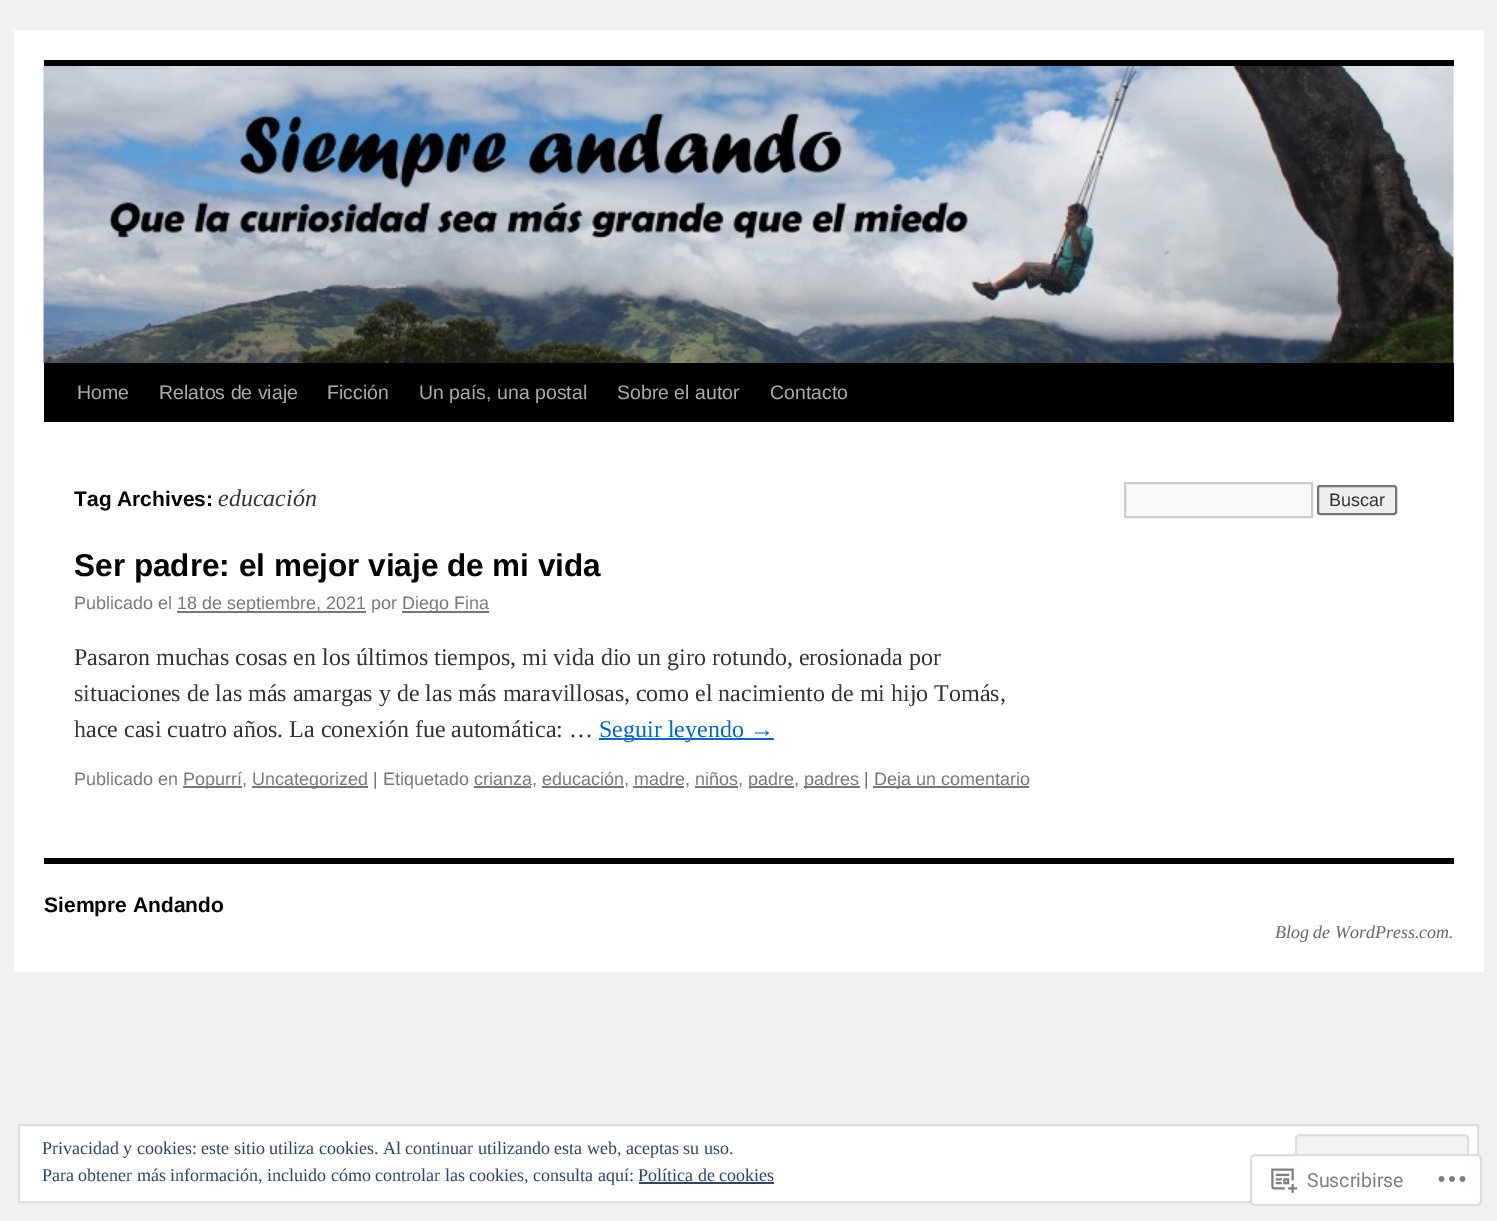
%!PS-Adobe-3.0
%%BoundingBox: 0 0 1497 1221
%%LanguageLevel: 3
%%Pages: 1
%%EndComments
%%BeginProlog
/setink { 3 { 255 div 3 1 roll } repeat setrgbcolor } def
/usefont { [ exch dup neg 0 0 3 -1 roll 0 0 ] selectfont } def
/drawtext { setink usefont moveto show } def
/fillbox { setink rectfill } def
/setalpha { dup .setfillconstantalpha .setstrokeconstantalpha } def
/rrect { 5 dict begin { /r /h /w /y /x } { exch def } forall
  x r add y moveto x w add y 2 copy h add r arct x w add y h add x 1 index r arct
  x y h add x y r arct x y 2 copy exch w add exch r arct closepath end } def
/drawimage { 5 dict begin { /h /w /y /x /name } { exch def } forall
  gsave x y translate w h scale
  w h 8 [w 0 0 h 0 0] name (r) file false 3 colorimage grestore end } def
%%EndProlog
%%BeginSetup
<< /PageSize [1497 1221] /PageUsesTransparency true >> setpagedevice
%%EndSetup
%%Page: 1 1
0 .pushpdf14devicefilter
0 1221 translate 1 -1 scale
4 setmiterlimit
0 0 1497 1221 241 241 241 fillbox
14 30 1470 942 255 255 255 fillbox
44 60 1410 6 0 0 0 fillbox
44 363 1410 59 0 0 0 fillbox
(assets/img1.rgb) 43 66 1411 297 drawimage
(Home) 77 399 /LiberationSans-Regular 19.5 170 170 170 drawtext
(Relatos de viaje) 159 399 /LiberationSans-Regular 19.5 170 170 170 drawtext
(Ficción) 327 399 /LiberationSans-Regular 19.5 170 170 170 drawtext
(Un país, una postal) 419 399 /LiberationSans-Regular 19.5 170 170 170 drawtext
(Sobre el autor) 617 399 /LiberationSans-Regular 19.5 170 170 170 drawtext
(Contacto) 770 399 /LiberationSans-Regular 19.5 170 170 170 drawtext
(Tag Archives:) 74 506 /LiberationSans-Bold 21 0 0 0 drawtext
(educación) 218 506 /LiberationSerif-Italic 24 51 51 51 drawtext
(Ser padre: el mejor viaje de mi vida) 74 576 /LiberationSans-Bold 31.5 0 0 0 drawtext
(Publicado el) 74 609 /LiberationSans-Regular 18 119 119 119 drawtext
177 611 189 2 119 119 119 fillbox
(18 de septiembre, 2021 por) 177 609 /LiberationSans-Regular 18 119 119 119 drawtext
402 611 87 2 119 119 119 fillbox
(Diego Fina) 402 609 /LiberationSans-Regular 18 119 119 119 drawtext
(Pasaron muchas cosas en los últimos tiempos, mi vida dio un giro rotundo, erosionada por) 74 665 /LiberationSerif-Regular 24 51 51 51 drawtext
(situaciones de las más amargas y de las más maravillosas, como el nacimiento de mi hijo Tomás,) 74 701 /LiberationSerif-Regular 24 51 51 51 drawtext
(hace casi cuatro años. La conexión fue automática: …) 74 737 /LiberationSerif-Regular 24 51 51 51 drawtext
599 738 175 2 0 102 204 fillbox
(Seguir leyendo →) 599 737 /LiberationSerif-Regular 24 0 102 204 drawtext
(Publicado en) 74 785 /LiberationSans-Regular 18 119 119 119 drawtext
183 786 59 2 119 119 119 fillbox
(Popurrí,) 183 785 /LiberationSans-Regular 18 119 119 119 drawtext
252 786 116 2 119 119 119 fillbox
(Uncategorized | Etiquetado crianza, educación, madre, niños,) 252 785 /LiberationSans-Regular 18 119 119 119 drawtext
749 786 45 2 119 119 119 fillbox
(padre,) 748 785 /LiberationSans-Regular 18 119 119 119 drawtext
474 786 57 2 119 119 119 fillbox
542 786 82 2 119 119 119 fillbox
633 786 51 2 119 119 119 fillbox
695 786 43 2 119 119 119 fillbox
804 786 56 2 119 119 119 fillbox
(padres |) 804 785 /LiberationSans-Regular 18 119 119 119 drawtext
873 786 156 2 119 119 119 fillbox
(Deja un comentario) 874 785 /LiberationSans-Regular 18 119 119 119 drawtext
249 249 249 setink
1125 483 moveto 1312 483 lineto 1312 517 lineto 1125 517 lineto closepath gsave fill grestore
204 204 204 setink
2 setlinewidth
stroke
239 239 239 setink
1318 486 78 28 2 rrect gsave fill grestore
118 118 118 setink
stroke
(Buscar) 1329 506 /LiberationSans-Regular 18 51 51 51 drawtext
44 858 1410 6 0 0 0 fillbox
(Siempre Andando) 44 912 /LiberationSans-Bold 21 0 0 0 drawtext
(Blog de WordPress.com.) 1275 938 /LiberationSerif-Italic 18 102 102 102 drawtext
255 255 255 setink
19 1125 moveto 1478 1125 lineto 1478 1202 lineto 19 1202 lineto closepath gsave fill grestore
222 222 222 setink
stroke
(Privacidad y cookies: este sitio utiliza cookies. Al continuar utilizando esta web, aceptas su uso.) 42 1154 /LiberationSerif-Regular 18 46 68 103 drawtext
243 243 243 setink
1296 1135 172 57 4 rrect gsave fill grestore
222 222 222 setink
stroke
(Para obtener más información, incluido cómo controlar las cookies, consulta aquí: Política de cookies) 42 1181 /LiberationSerif-Regular 18 46 68 103 drawtext
639 1182 135 2 46 68 103 fillbox
0.98 setalpha
255 255 255 setink
1250 1154 232 52 5 rrect fill
220 220 222 setink
1251 1155 230 50 4 rrect stroke
1 setalpha
(assets/img2.rgb) 1271 1168 27 25 drawimage
(Suscribirse) 1307 1187 /Roboto-Regular 19.5 123 127 132 drawtext
(assets/img3.rgb) 1438 1176 28 6 drawimage
.poppdf14devicefilter showpage
%%EOF
